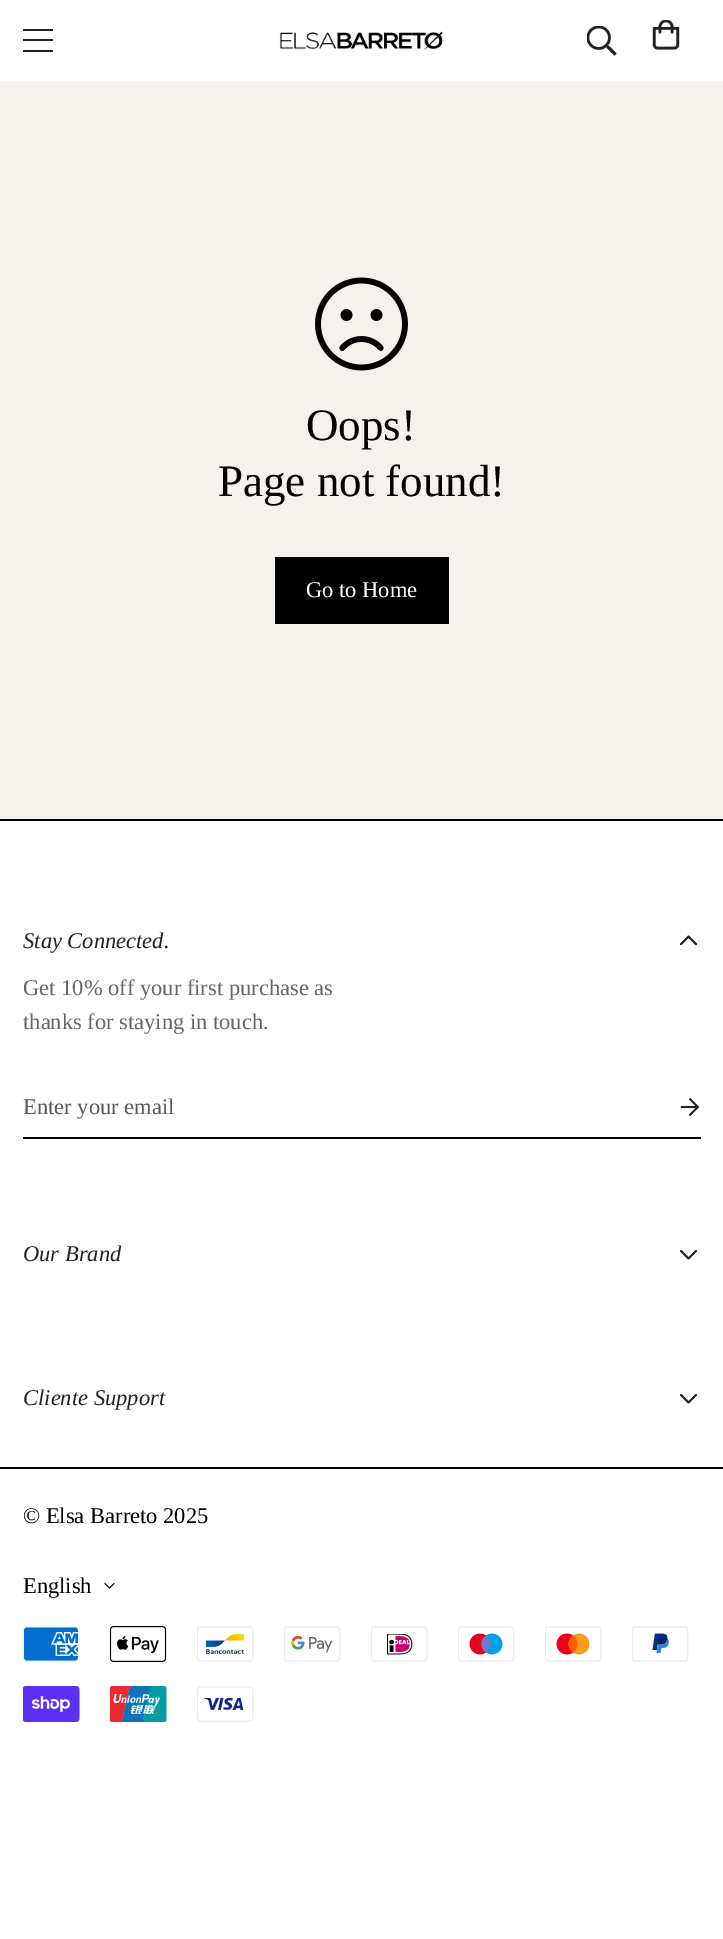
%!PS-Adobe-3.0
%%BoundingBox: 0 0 723 1939
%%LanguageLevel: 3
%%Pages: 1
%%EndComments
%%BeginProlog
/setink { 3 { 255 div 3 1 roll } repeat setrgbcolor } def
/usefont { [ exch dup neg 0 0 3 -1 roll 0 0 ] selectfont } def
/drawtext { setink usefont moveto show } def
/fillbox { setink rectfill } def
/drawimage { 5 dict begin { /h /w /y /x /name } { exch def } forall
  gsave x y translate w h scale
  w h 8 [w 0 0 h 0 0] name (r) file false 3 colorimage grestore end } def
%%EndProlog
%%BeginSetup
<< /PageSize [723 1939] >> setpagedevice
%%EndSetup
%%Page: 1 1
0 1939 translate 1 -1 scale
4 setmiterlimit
0 0 723 1939 255 255 255 fillbox
23 39 30 2 34 34 34 fillbox
23 29 30 2 34 34 34 fillbox
23 50 30 2 34 34 34 fillbox
(assets/img1.rgb) 279 31 164 19 drawimage
(assets/img2.rgb) 587 26 30 30 drawimage
(assets/img3.rgb) 652 20 28 30 drawimage
0 81 723 738 245 241 237 fillbox
(assets/img4.rgb) 315 277 93 94 drawimage
(Oops!) 306 440 /LiberationSerif-Regular 45 0 0 0 drawtext
(Page not found!) 218 496 /LiberationSerif-Regular 45 0 0 0 drawtext
275 557 174 67 0 0 0 fillbox
(Go to Home) 306 597 /LiberationSerif-Regular 22.5 255 255 255 drawtext
0 819 723 2 0 0 0 fillbox
0 1467 723 2 0 0 0 fillbox
(Stay Connected.) 23 948 /LiberationSerif-Italic 22.5 34 34 34 drawtext
(assets/img5.rgb) 679 935 19 11 drawimage
(Get 10% off your first purchase as) 23 995 /LiberationSerif-Regular 22.5 102 102 102 drawtext
(thanks for staying in touch.) 23 1029 /LiberationSerif-Regular 22.5 102 102 102 drawtext
23 1137 678 2 0 0 0 fillbox
(Enter your email) 23 1114 /LiberationSerif-Regular 22.5 89 89 89 drawtext
(assets/img6.rgb) 680 1098 20 18 drawimage
(Our Brand) 23 1261 /LiberationSerif-Italic 22.5 34 34 34 drawtext
(assets/img7.rgb) 679 1249 19 11 drawimage
(Cliente Support) 23 1405 /LiberationSerif-Italic 22.5 34 34 34 drawtext
(assets/img7.rgb) 679 1393 19 11 drawimage
(© Elsa Barreto 2025) 23 1523 /LiberationSerif-Regular 22.5 0 0 0 drawtext
(English) 23 1593 /LiberationSerif-Regular 22.5 0 0 0 drawtext
(assets/img8.rgb) 104 1582 11 7 drawimage
(assets/img9.rgb) 23 1626 57 36 drawimage
(assets/img10.rgb) 110 1626 57 36 drawimage
(assets/img11.rgb) 197 1626 57 36 drawimage
(assets/img12.rgb) 284 1626 57 36 drawimage
(assets/img13.rgb) 371 1626 57 36 drawimage
(assets/img14.rgb) 458 1626 57 36 drawimage
(assets/img15.rgb) 545 1626 57 36 drawimage
(assets/img16.rgb) 632 1626 57 36 drawimage
(assets/img17.rgb) 23 1686 57 36 drawimage
(assets/img18.rgb) 110 1686 57 36 drawimage
(assets/img19.rgb) 197 1686 57 36 drawimage
showpage
%%EOF
